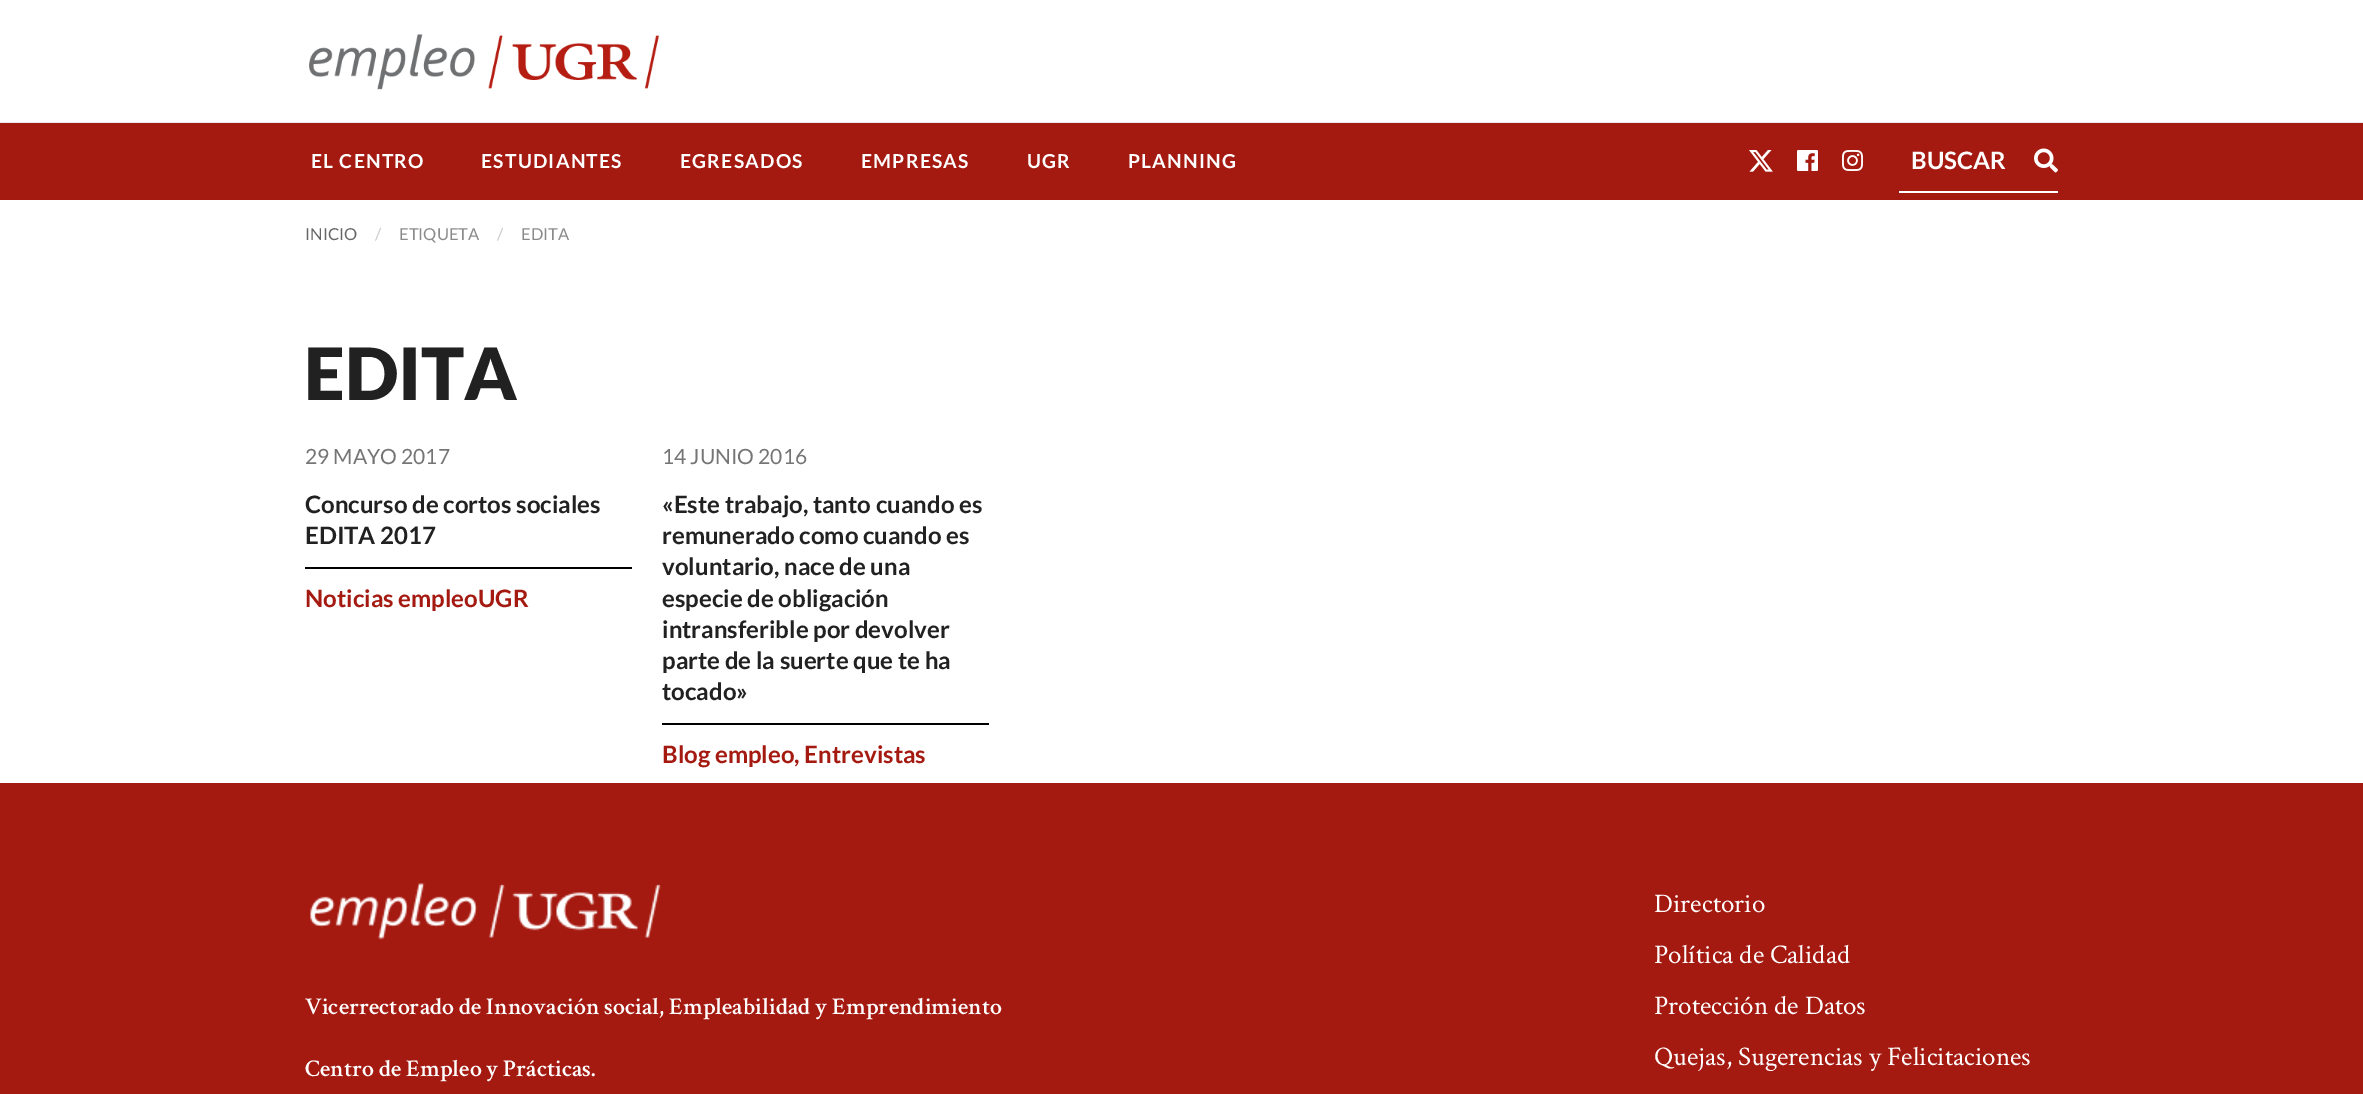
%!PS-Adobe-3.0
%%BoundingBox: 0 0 2363 1094
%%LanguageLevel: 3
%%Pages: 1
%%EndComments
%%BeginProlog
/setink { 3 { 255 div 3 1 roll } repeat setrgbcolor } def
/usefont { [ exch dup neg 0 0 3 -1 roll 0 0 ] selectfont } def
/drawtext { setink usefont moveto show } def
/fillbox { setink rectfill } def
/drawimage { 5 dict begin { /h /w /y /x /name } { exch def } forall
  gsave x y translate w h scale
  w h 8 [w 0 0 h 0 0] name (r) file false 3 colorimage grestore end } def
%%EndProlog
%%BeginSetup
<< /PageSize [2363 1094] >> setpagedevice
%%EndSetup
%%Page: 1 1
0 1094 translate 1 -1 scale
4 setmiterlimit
0 0 2363 1094 255 255 255 fillbox
(assets/img1.rgb) 309 34 351 56 drawimage
0 122 2363 1 234 234 234 fillbox
0 123 2363 77 164 25 16 fillbox
/Lato-Bold 19.25 usefont
254 254 254 setink
311 168 moveto 1.25 0 (EL CENTRO) ashow
481 168 moveto 1.25 0 (ESTUDIANTES) ashow
680 168 moveto 1.25 0 (EGRESADOS) ashow
861 168 moveto 1.25 0 (EMPRESAS) ashow
1027 168 moveto 1.25 0 (UGR) ashow
1128 168 moveto 1.25 0 (PLANNING) ashow
(assets/img2.rgb) 1749 150 24 22 drawimage
(assets/img3.rgb) 1797 150 21 21 drawimage
(assets/img4.rgb) 1842 150 21 21 drawimage
1899 191 159 2 255 255 255 fillbox
(BUSCAR) 1911 169 /Lato-Bold 24 254 254 254 drawtext
(assets/img5.rgb) 2034 148 24 25 drawimage
(INICIO) 305 240 /Lato-Regular 16.5 102 102 102 drawtext
(/) 375 240 /Lato-Regular 16.5 202 202 202 drawtext
(ETIQUETA) 399 240 /Lato-Regular 16.5 138 138 138 drawtext
(/) 497 240 /Lato-Regular 16.5 202 202 202 drawtext
(EDITA) 521 240 /Lato-Regular 16.5 138 138 138 drawtext
(EDITA) 304 400 /Lato-Black 72 33 33 33 drawtext
(29 MAYO 2017) 305 464 /Lato-Regular 21 117 117 117 drawtext
(Concurso de cortos sociales) 305 513 /Lato-Bold 24 33 33 33 drawtext
(EDITA 2017) 305 544 /Lato-Bold 24 33 33 33 drawtext
305 567 327 2 0 0 0 fillbox
(Noticias empleoUGR) 305 607 /Lato-Bold 24 164 25 16 drawtext
(14 JUNIO 2016) 662 464 /Lato-Regular 21 117 117 117 drawtext
(«Este trabajo, tanto cuando es) 662 513 /Lato-Bold 24 33 33 33 drawtext
(remunerado como cuando es) 662 544 /Lato-Bold 24 33 33 33 drawtext
(voluntario, nace de una) 662 575 /Lato-Bold 24 33 33 33 drawtext
(especie de obligación) 662 607 /Lato-Bold 24 33 33 33 drawtext
(intransferible por devolver) 662 638 /Lato-Bold 24 33 33 33 drawtext
(parte de la suerte que te ha) 662 669 /Lato-Bold 24 33 33 33 drawtext
(tocado») 662 700 /Lato-Bold 24 33 33 33 drawtext
662 723 327 2 0 0 0 fillbox
(Blog empleo, Entrevistas) 662 763 /Lato-Bold 24 164 25 16 drawtext
0 783 2363 311 164 25 16 fillbox
(assets/img6.rgb) 310 883 351 57 drawimage
(Vicerrectorado de Innovación social, Empleabilidad y Emprendimiento) 305 1014 /CrimsonText-SemiBold 24 254 254 254 drawtext
(Centro de Empleo y Prácticas.) 305 1076 /CrimsonText-SemiBold 24 254 254 254 drawtext
(Directorio) 1654 912 /CrimsonText-Regular 27 254 254 254 drawtext
(Política de Calidad) 1654 963 /CrimsonText-Regular 27 254 254 254 drawtext
(Protección de Datos) 1654 1014 /CrimsonText-Regular 27 254 254 254 drawtext
(Quejas, Sugerencias y Felicitaciones) 1654 1065 /CrimsonText-Regular 27 254 254 254 drawtext
showpage
%%EOF
